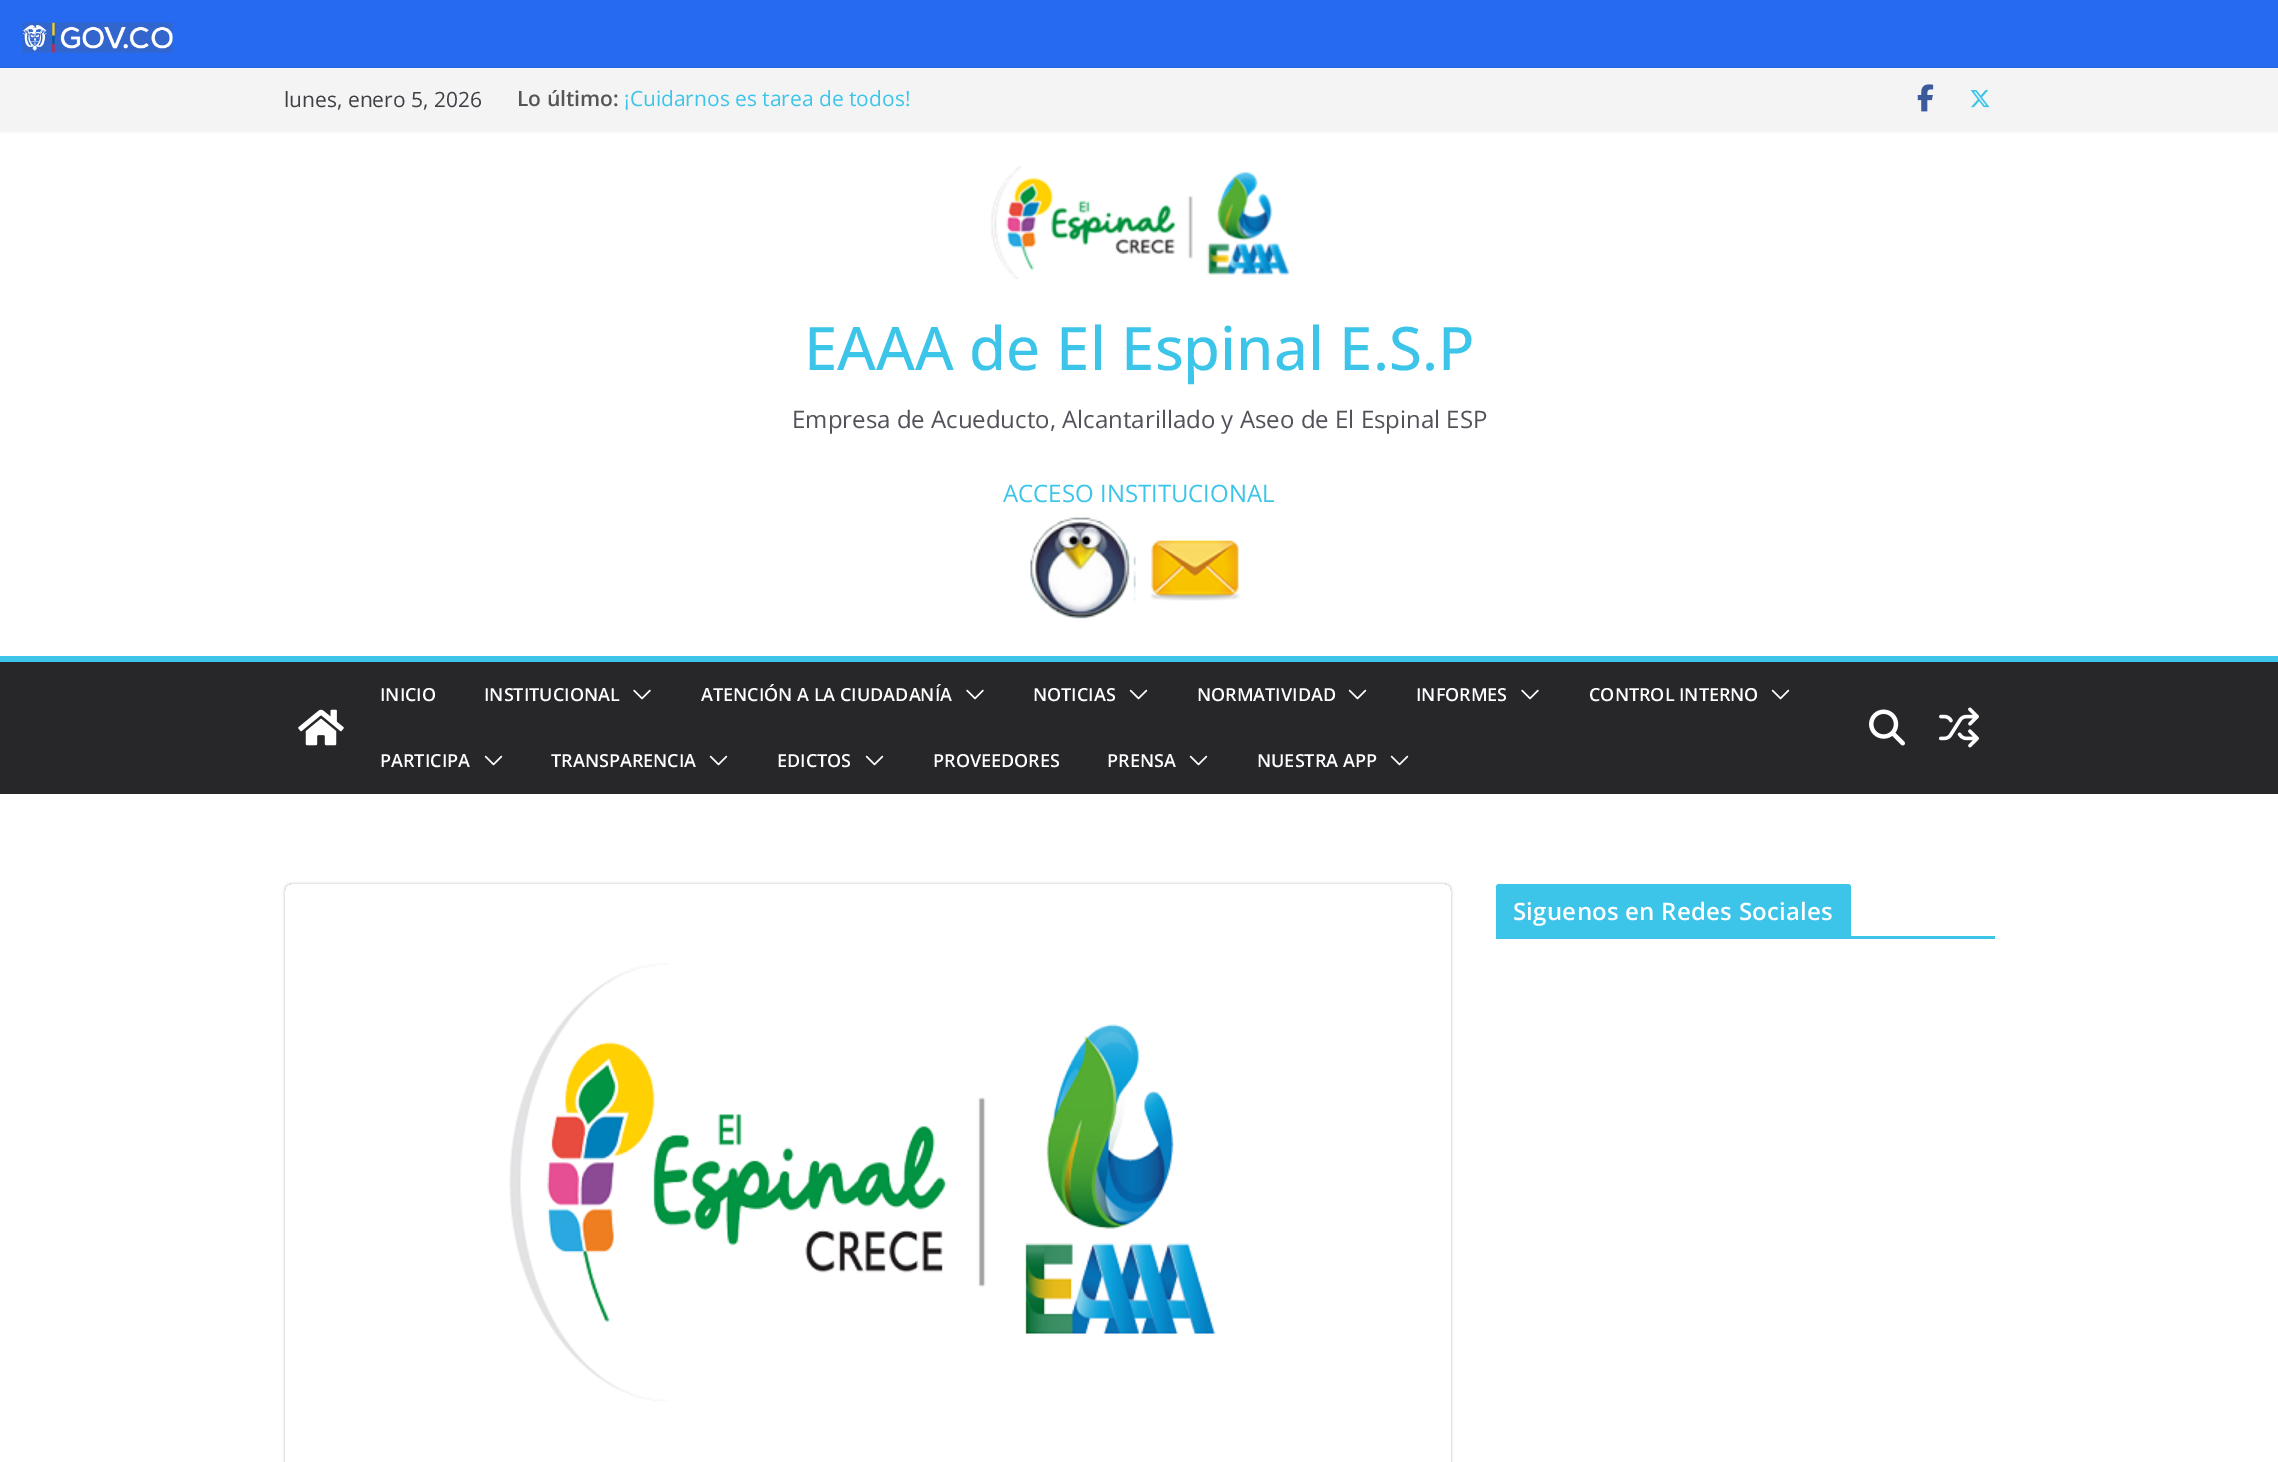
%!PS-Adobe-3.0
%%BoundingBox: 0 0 2278 1462
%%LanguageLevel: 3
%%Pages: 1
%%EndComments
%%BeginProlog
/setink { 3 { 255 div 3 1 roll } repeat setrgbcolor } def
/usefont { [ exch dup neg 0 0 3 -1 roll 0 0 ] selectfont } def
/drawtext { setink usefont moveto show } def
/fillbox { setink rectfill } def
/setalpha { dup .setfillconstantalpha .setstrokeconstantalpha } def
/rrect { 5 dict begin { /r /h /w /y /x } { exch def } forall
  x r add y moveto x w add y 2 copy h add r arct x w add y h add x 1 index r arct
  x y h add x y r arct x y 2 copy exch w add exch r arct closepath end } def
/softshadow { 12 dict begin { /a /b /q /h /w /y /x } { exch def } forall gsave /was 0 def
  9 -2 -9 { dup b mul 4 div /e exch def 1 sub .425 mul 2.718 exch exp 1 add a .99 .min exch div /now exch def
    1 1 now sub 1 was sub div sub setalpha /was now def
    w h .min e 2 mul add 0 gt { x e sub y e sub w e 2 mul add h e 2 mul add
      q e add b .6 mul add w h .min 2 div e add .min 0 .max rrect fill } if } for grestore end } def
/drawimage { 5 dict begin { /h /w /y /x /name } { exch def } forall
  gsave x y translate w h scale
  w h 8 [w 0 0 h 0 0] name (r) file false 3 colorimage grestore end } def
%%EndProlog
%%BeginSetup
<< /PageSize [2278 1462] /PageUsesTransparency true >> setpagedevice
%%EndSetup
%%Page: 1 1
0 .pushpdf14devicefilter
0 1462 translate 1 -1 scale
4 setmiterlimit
0 0 2278 1462 38 106 242 fillbox
(assets/img1.rgb) 22 22 151 31 drawimage
0 131 2278 525 255 255 255 fillbox
0 0 0 setink
0 68 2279 63 0 1.5 0.1 softshadow
0 68 2278 63 244 244 245 fillbox
(lunes, enero 5, 2026) 284 107 /OpenSans-Regular 21 63 63 70 drawtext
(Lo último:) 517 106 /OpenSans-SemiBold 21 85 85 85 drawtext
(¡Cuidarnos es tarea de todos!) 624 106 /OpenSans-Regular 21 60 197 232 drawtext
(assets/img2.rgb) 1917 84 17 28 drawimage
(assets/img3.rgb) 1970 90 20 18 drawimage
(assets/img4.rgb) 990 166 300 113 drawimage
(EAAA de El Espinal E.S.P) 804 370 /OpenSans-Medium 60 60 197 232 drawtext
(Empresa de Acueducto, Alcantarillado y Aseo de El Espinal ESP) 792 428 /OpenSans-Regular 24 82 82 91 drawtext
(ACCESO INSTITUCIONAL) 1003 502 /OpenSans-Regular 24 60 197 232 drawtext
(assets/img5.rgb) 1030 517 106 102 drawimage
(assets/img6.rgb) 1150 540 90 61 drawimage
0 662 2278 132 39 39 42 fillbox
0 656 2278 6 60 197 232 fillbox
(assets/img7.rgb) 298 709 46 37 drawimage
(INICIO) 380 701 /OpenSans-SemiBold 18 255 255 255 drawtext
(INSTITUCIONAL) 484 701 /OpenSans-SemiBold 18 255 255 255 drawtext
(assets/img8.rgb) 633 689 18 11 drawimage
(ATENCIÓN A LA CIUDADANÍA) 701 701 /OpenSans-SemiBold 18 255 255 255 drawtext
(assets/img8.rgb) 966 689 18 11 drawimage
(NOTICIAS) 1033 701 /OpenSans-SemiBold 18 255 255 255 drawtext
(assets/img9.rgb) 1129 689 19 11 drawimage
(NORMATIVIDAD) 1197 701 /OpenSans-SemiBold 18 255 255 255 drawtext
(assets/img9.rgb) 1348 689 19 11 drawimage
(INFORMES) 1416 701 /OpenSans-SemiBold 18 255 255 255 drawtext
(assets/img8.rgb) 1521 689 18 11 drawimage
(CONTROL INTERNO) 1589 701 /OpenSans-SemiBold 18 255 255 255 drawtext
(assets/img9.rgb) 1771 689 19 11 drawimage
(PARTICIPA) 380 767 /OpenSans-SemiBold 18 255 255 255 drawtext
(assets/img9.rgb) 484 755 19 11 drawimage
(TRANSPARENCIA) 551 767 /OpenSans-SemiBold 18 255 255 255 drawtext
(assets/img9.rgb) 709 755 19 11 drawimage
(EDICTOS) 777 767 /OpenSans-SemiBold 18 255 255 255 drawtext
(assets/img9.rgb) 865 755 19 11 drawimage
(PROVEEDORES) 933 767 /OpenSans-SemiBold 18 255 255 255 drawtext
(PRENSA) 1107 767 /OpenSans-SemiBold 18 255 255 255 drawtext
(assets/img9.rgb) 1189 755 19 11 drawimage
(NUESTRA APP) 1257 767 /OpenSans-SemiBold 18 255 255 255 drawtext
(assets/img9.rgb) 1390 755 19 11 drawimage
(assets/img10.rgb) 1869 709 36 37 drawimage
(assets/img11.rgb) 1938 707 41 41 drawimage
0 794 2278 668 255 255 255 fillbox
gsave
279 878 moveto 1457 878 lineto 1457 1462 lineto 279 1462 lineto closepath 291 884 moveto 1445 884 lineto 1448.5 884 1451 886.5 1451 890 curveto 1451 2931 lineto 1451 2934.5 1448.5 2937 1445 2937 curveto 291 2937 lineto 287.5 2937 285 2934.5 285 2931 curveto 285 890 lineto 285 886.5 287.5 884 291 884 curveto closepath eoclip newpath
0 0 0 setink
285 884 1166 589 6 1.5 0.24 softshadow
grestore
(assets/img12.rgb) 509 963 707 438 drawimage
1496 936 499 3 60 197 232 fillbox
1499 884 moveto 1848 884 lineto 1849.5 884 1851 885.5 1851 887 curveto 1851 936 lineto 1496 936 lineto 1496 887 lineto 1496 885.5 1497.5 884 1499 884 curveto closepath fill
/OpenSans-SemiBold 24 usefont
255 255 255 setink
1513 920 moveto 0.25 0 (Siguenos en Redes Sociales) ashow
.poppdf14devicefilter showpage
%%EOF
